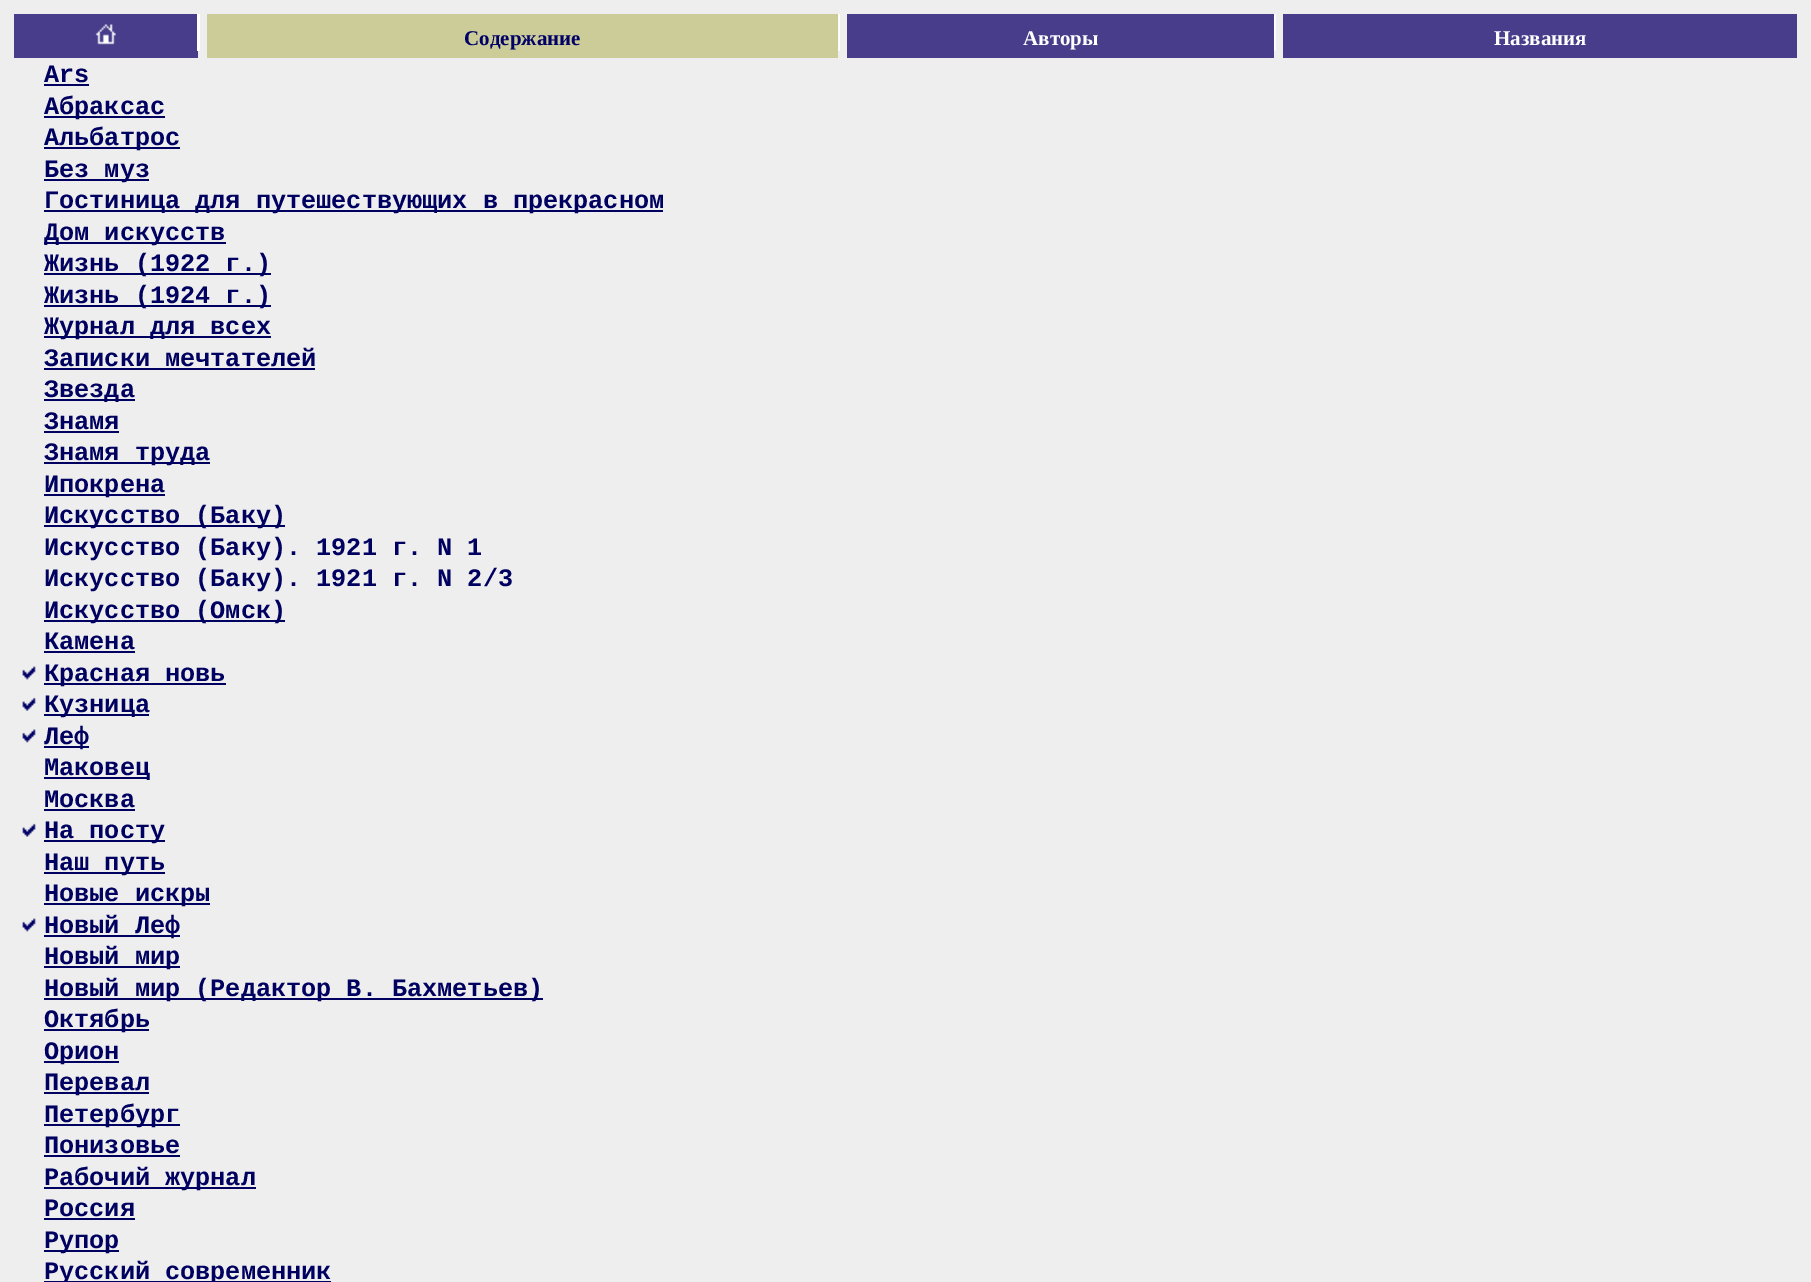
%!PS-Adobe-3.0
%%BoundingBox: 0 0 1811 1282
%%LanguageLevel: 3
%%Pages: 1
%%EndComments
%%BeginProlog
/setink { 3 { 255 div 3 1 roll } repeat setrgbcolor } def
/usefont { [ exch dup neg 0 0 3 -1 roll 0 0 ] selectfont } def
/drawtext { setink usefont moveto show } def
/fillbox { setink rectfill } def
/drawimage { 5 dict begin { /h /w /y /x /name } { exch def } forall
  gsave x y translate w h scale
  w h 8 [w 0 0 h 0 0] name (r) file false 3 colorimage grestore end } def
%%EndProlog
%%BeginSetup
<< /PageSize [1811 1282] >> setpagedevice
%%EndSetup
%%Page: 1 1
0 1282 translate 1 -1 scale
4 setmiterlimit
0 0 1811 1282 238 238 238 fillbox
14 14 184 44 72 61 139 fillbox
(assets/img1.rgb) 95 24 21 21 drawimage
197 14 3 37 255 255 255 fillbox
207 14 631 44 204 204 153 fillbox
(Содержание) 464 45 /LiberationSerif-Bold 21 0 0 102 drawtext
(assets/img2.rgb) 838 14 2 37 drawimage
847 14 427 44 72 61 139 fillbox
(Авторы) 1023 45 /LiberationSerif-Bold 21 255 255 255 drawtext
(assets/img3.rgb) 1274 14 2 37 drawimage
1283 14 514 44 72 61 139 fillbox
(Названия) 1494 45 /LiberationSerif-Bold 21 255 255 255 drawtext
(Ars) 44 82 /LiberationMono-Bold 25.2 0 0 96 drawtext
44 84 45 2 0 0 96 fillbox
44 116 121 2 0 0 96 fillbox
(Абраксас) 44 114 /LiberationMono-Bold 25.2 0 0 96 drawtext
44 147 136 2 0 0 96 fillbox
(Альбатрос) 44 145 /LiberationMono-Bold 25.2 0 0 96 drawtext
44 179 105 2 0 0 96 fillbox
(Без муз) 44 177 /LiberationMono-Bold 25.2 0 0 96 drawtext
44 210 619 2 0 0 96 fillbox
(Гостиница для путешествующих в прекрасном) 44 208 /LiberationMono-Bold 25.2 0 0 96 drawtext
44 242 182 2 0 0 96 fillbox
(Дом искусств) 44 240 /LiberationMono-Bold 25.2 0 0 96 drawtext
44 273 227 2 0 0 96 fillbox
(Жизнь \(1922 г.\)) 44 271 /LiberationMono-Bold 25.2 0 0 96 drawtext
44 305 227 2 0 0 96 fillbox
(Жизнь \(1924 г.\)) 44 303 /LiberationMono-Bold 25.2 0 0 96 drawtext
44 336 227 2 0 0 96 fillbox
(Журнал для всех) 44 334 /LiberationMono-Bold 25.2 0 0 96 drawtext
(Записки мечтателей) 44 366 /LiberationMono-Bold 25.2 0 0 96 drawtext
44 368 271 2 0 0 96 fillbox
44 399 91 2 0 0 96 fillbox
(Звезда) 44 397 /LiberationMono-Bold 25.2 0 0 96 drawtext
(Знамя) 44 429 /LiberationMono-Bold 25.2 0 0 96 drawtext
44 431 75 2 0 0 96 fillbox
44 462 166 2 0 0 96 fillbox
(Знамя труда) 44 460 /LiberationMono-Bold 25.2 0 0 96 drawtext
44 494 121 2 0 0 96 fillbox
(Ипокрена) 44 492 /LiberationMono-Bold 25.2 0 0 96 drawtext
44 525 241 2 0 0 96 fillbox
(Искусство \(Баку\)) 44 523 /LiberationMono-Bold 25.2 0 0 96 drawtext
(Искусство \(Баку\). 1921 г. N 1) 44 555 /LiberationMono-Bold 25.2 0 0 96 drawtext
(Искусство \(Баку\). 1921 г. N 2/3) 44 586 /LiberationMono-Bold 25.2 0 0 96 drawtext
44 620 241 2 0 0 96 fillbox
(Искусство \(Омск\)) 44 618 /LiberationMono-Bold 25.2 0 0 96 drawtext
(Камена) 44 649 /LiberationMono-Bold 25.2 0 0 96 drawtext
44 651 91 2 0 0 96 fillbox
(assets/img4.rgb) 22 666 14 14 drawimage
44 683 182 2 0 0 96 fillbox
(Красная новь) 44 681 /LiberationMono-Bold 25.2 0 0 96 drawtext
(assets/img5.rgb) 22 697 14 14 drawimage
44 714 105 2 0 0 96 fillbox
(Кузница) 44 712 /LiberationMono-Bold 25.2 0 0 96 drawtext
(assets/img4.rgb) 22 729 14 14 drawimage
44 746 45 2 0 0 96 fillbox
(Леф) 44 744 /LiberationMono-Bold 25.2 0 0 96 drawtext
44 777 105 2 0 0 96 fillbox
(Маковец) 44 775 /LiberationMono-Bold 25.2 0 0 96 drawtext
(Москва) 44 807 /LiberationMono-Bold 25.2 0 0 96 drawtext
44 809 91 2 0 0 96 fillbox
(assets/img5.rgb) 22 823 14 14 drawimage
44 840 121 2 0 0 96 fillbox
(На посту) 44 838 /LiberationMono-Bold 25.2 0 0 96 drawtext
44 872 121 2 0 0 96 fillbox
(Наш путь) 44 870 /LiberationMono-Bold 25.2 0 0 96 drawtext
44 903 166 2 0 0 96 fillbox
(Новые искры) 44 901 /LiberationMono-Bold 25.2 0 0 96 drawtext
(assets/img4.rgb) 22 918 14 14 drawimage
44 935 136 2 0 0 96 fillbox
(Новый Леф) 44 933 /LiberationMono-Bold 25.2 0 0 96 drawtext
44 966 136 2 0 0 96 fillbox
(Новый мир) 44 964 /LiberationMono-Bold 25.2 0 0 96 drawtext
44 998 499 2 0 0 96 fillbox
(Новый мир \(Редактор В. Бахметьев\)) 44 996 /LiberationMono-Bold 25.2 0 0 96 drawtext
44 1029 105 2 0 0 96 fillbox
(Октябрь) 44 1027 /LiberationMono-Bold 25.2 0 0 96 drawtext
44 1061 75 2 0 0 96 fillbox
(Орион) 44 1059 /LiberationMono-Bold 25.2 0 0 96 drawtext
44 1092 105 2 0 0 96 fillbox
(Перевал) 44 1090 /LiberationMono-Bold 25.2 0 0 96 drawtext
44 1124 136 2 0 0 96 fillbox
(Петербург) 44 1122 /LiberationMono-Bold 25.2 0 0 96 drawtext
(Понизовье) 44 1153 /LiberationMono-Bold 25.2 0 0 96 drawtext
44 1155 136 2 0 0 96 fillbox
44 1187 212 2 0 0 96 fillbox
(Рабочий журнал) 44 1185 /LiberationMono-Bold 25.2 0 0 96 drawtext
(Россия) 44 1216 /LiberationMono-Bold 25.2 0 0 96 drawtext
44 1218 91 2 0 0 96 fillbox
44 1250 75 2 0 0 96 fillbox
(Рупор) 44 1248 /LiberationMono-Bold 25.2 0 0 96 drawtext
44 1281 287 1 0 0 96 fillbox
(Русский современник) 44 1279 /LiberationMono-Bold 25.2 0 0 96 drawtext
showpage
%%EOF
